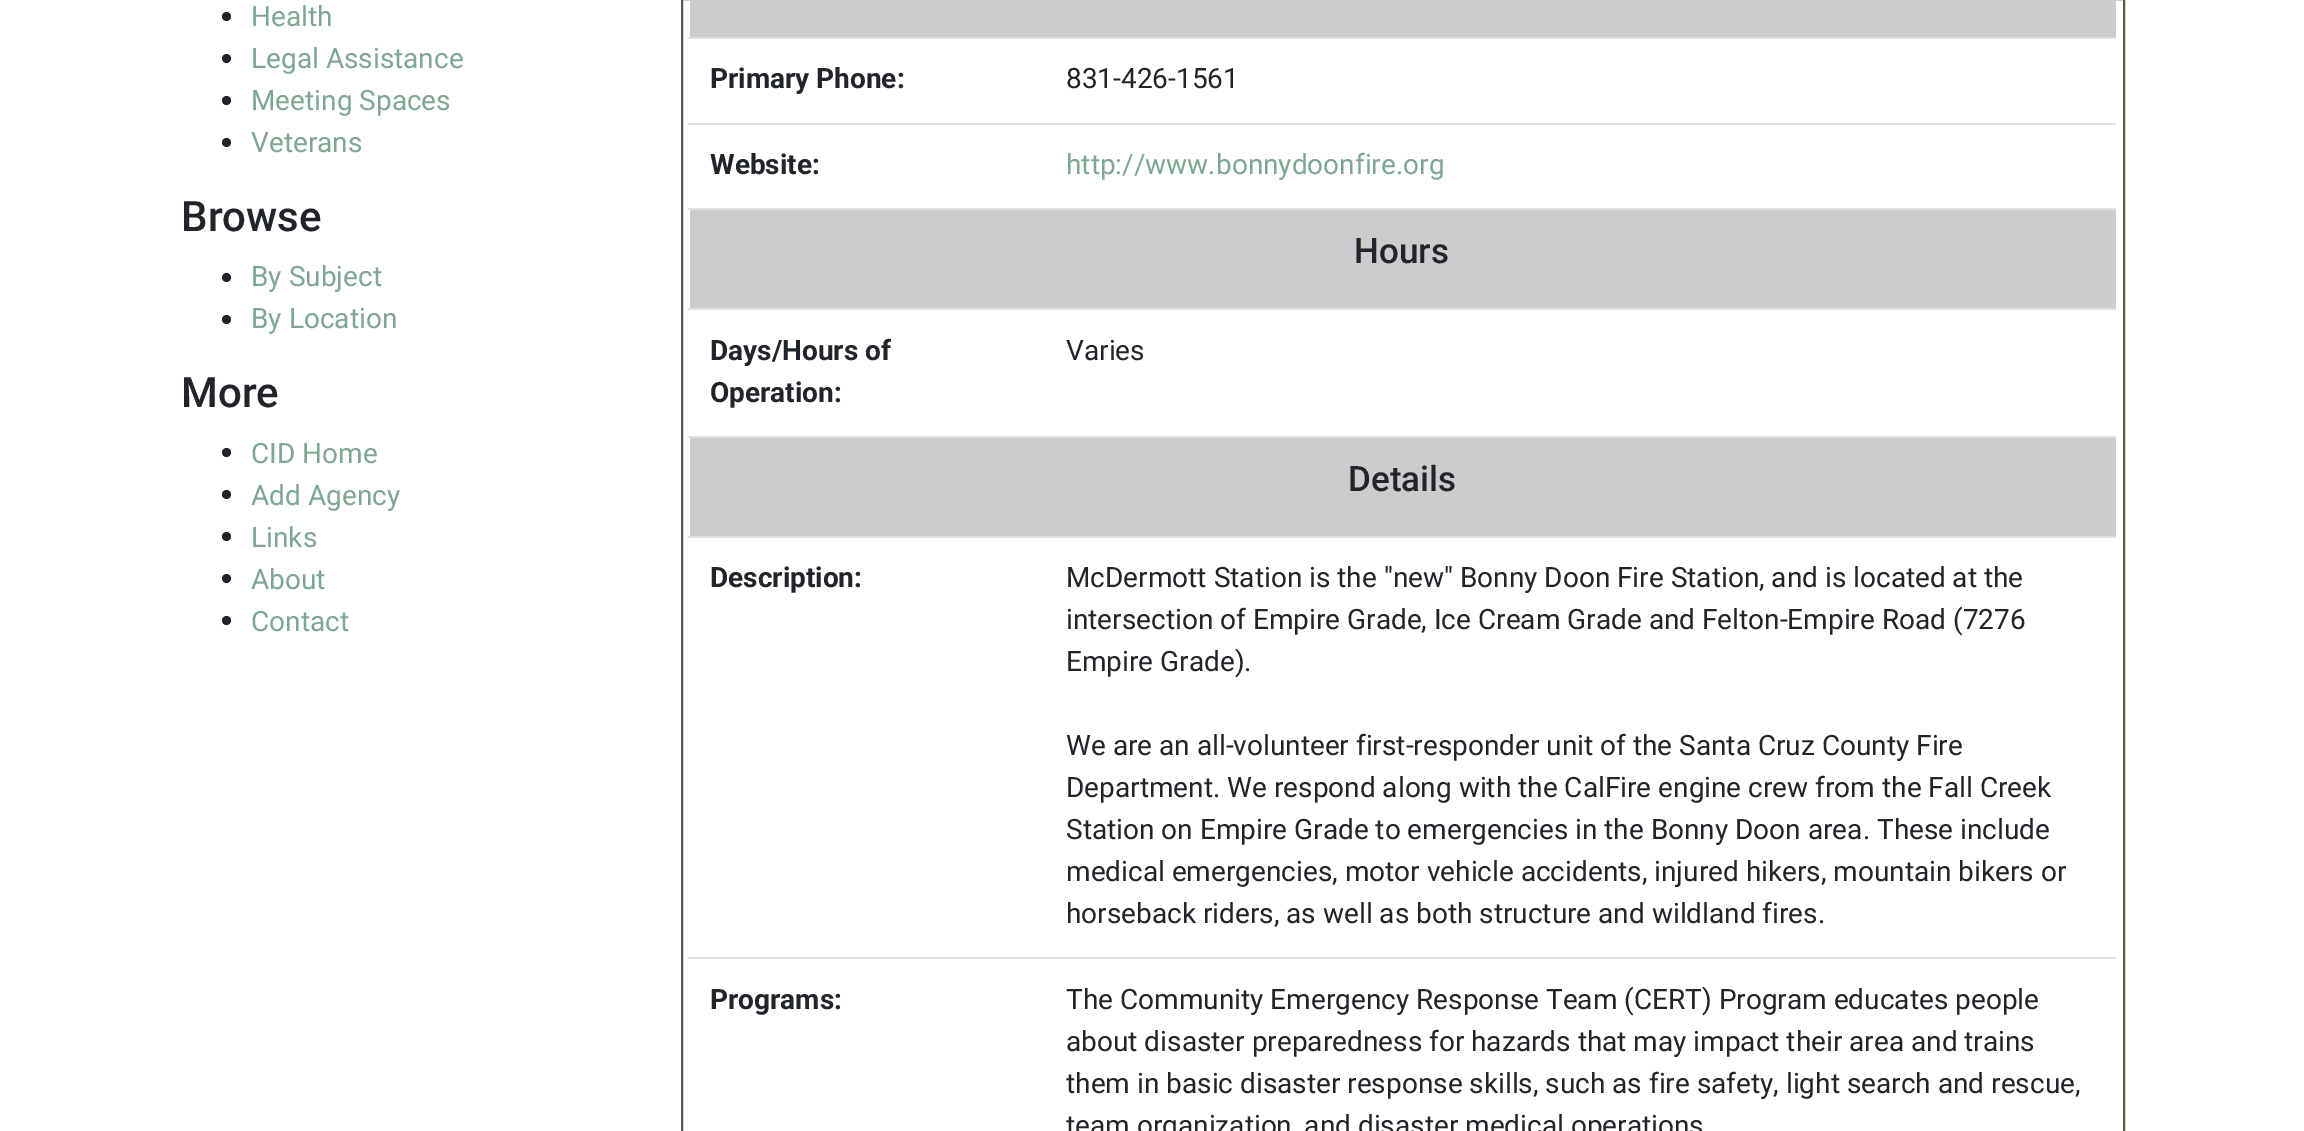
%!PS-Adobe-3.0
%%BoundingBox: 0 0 2304 1131
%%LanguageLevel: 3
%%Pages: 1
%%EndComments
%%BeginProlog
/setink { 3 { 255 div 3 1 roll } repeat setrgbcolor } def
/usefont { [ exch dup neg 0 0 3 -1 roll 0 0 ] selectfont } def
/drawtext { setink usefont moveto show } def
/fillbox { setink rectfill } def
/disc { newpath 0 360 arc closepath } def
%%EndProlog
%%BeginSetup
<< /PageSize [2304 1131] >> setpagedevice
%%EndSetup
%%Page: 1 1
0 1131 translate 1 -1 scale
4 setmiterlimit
0 0 2304 1131 255 255 255 fillbox
33 37 41 setink
226.5 16.5 4.5 disc fill
(Health) 251 26 /Roboto-Regular 28 125 167 146 drawtext
33 37 41 setink
226.5 58.5 4.5 disc fill
(Legal Assistance) 251 68 /Roboto-Regular 28 125 167 146 drawtext
33 37 41 setink
226.5 100.5 4.5 disc fill
(Meeting Spaces) 251 110 /Roboto-Regular 28 125 167 146 drawtext
33 37 41 setink
226.5 142.5 4.5 disc fill
(Veterans) 251 152 /Roboto-Regular 28 125 167 146 drawtext
(Browse) 181 231 /Roboto-Medium 42 33 37 41 drawtext
226.5 277.5 4.5 disc fill
(By Subject) 251 286 /Roboto-Regular 28 125 167 146 drawtext
33 37 41 setink
226.5 319.5 4.5 disc fill
(By Location) 251 328 /Roboto-Regular 28 125 167 146 drawtext
(More) 181 407 /Roboto-Medium 42 33 37 41 drawtext
226.5 452.5 4.5 disc fill
(CID Home) 251 463 /Roboto-Regular 28 125 167 146 drawtext
33 37 41 setink
226.5 494.5 4.5 disc fill
(Add Agency) 251 505 /Roboto-Regular 28 125 167 146 drawtext
33 37 41 setink
226.5 536.5 4.5 disc fill
(Links) 251 547 /Roboto-Regular 28 125 167 146 drawtext
33 37 41 setink
226.5 578.5 4.5 disc fill
(About) 251 589 /Roboto-Regular 28 125 167 146 drawtext
33 37 41 setink
226.5 620.5 4.5 disc fill
(Contact) 251 631 /Roboto-Regular 28 125 167 146 drawtext
91 89 73 setink
2 setlinewidth
682 -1 1442 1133 rectstroke
690 0 1426 37 204 204 204 fillbox
(Primary Phone:) 710 88 /Roboto-Bold 28 33 37 41 drawtext
688 37 1428 2 222 226 230 fillbox
(831-426-1561) 1066 88 /Roboto-Regular 28 33 37 41 drawtext
(Website:) 710 174 /Roboto-Bold 28 33 37 41 drawtext
688 123 1428 2 222 226 230 fillbox
(http://www.bonnydoonfire.org) 1066 174 /Roboto-Regular 28 125 167 146 drawtext
690 210 1426 98 204 204 204 fillbox
688 208 1428 2 222 226 230 fillbox
(Hours) 1354 263 /Roboto-Medium 35 33 37 41 drawtext
(Days/Hours of) 710 360 /Roboto-Bold 28 33 37 41 drawtext
(Operation:) 710 402 /Roboto-Bold 28 33 37 41 drawtext
688 308 1428 2 222 226 230 fillbox
(Varies) 1066 360 /Roboto-Regular 28 33 37 41 drawtext
690 438 1426 98 204 204 204 fillbox
688 436 1428 2 222 226 230 fillbox
(Details) 1348 491 /Roboto-Medium 35 33 37 41 drawtext
(Description:) 710 587 /Roboto-Bold 28 33 37 41 drawtext
688 536 1428 2 222 226 230 fillbox
(McDermott Station is the "new" Bonny Doon Fire Station, and is located at the) 1066 587 /Roboto-Regular 28 33 37 41 drawtext
(intersection of Empire Grade, Ice Cream Grade and Felton-Empire Road \(7276) 1066 629 /Roboto-Regular 28 33 37 41 drawtext
(Empire Grade\).) 1066 671 /Roboto-Regular 28 33 37 41 drawtext
(We are an all-volunteer first-responder unit of the Santa Cruz County Fire) 1066 755 /Roboto-Regular 28 33 37 41 drawtext
(Department. We respond along with the CalFire engine crew from the Fall Creek) 1066 797 /Roboto-Regular 28 33 37 41 drawtext
(Station on Empire Grade to emergencies in the Bonny Doon area. These include) 1066 839 /Roboto-Regular 28 33 37 41 drawtext
(medical emergencies, motor vehicle accidents, injured hikers, mountain bikers or) 1066 881 /Roboto-Regular 28 33 37 41 drawtext
(horseback riders, as well as both structure and wildland fires.) 1066 923 /Roboto-Regular 28 33 37 41 drawtext
(Programs:) 710 1009 /Roboto-Bold 28 33 37 41 drawtext
688 957 1428 2 222 226 230 fillbox
(The Community Emergency Response Team \(CERT\) Program educates people) 1066 1009 /Roboto-Regular 28 33 37 41 drawtext
(about disaster preparedness for hazards that may impact their area and trains) 1066 1051 /Roboto-Regular 28 33 37 41 drawtext
(them in basic disaster response skills, such as fire safety, light search and rescue,) 1066 1093 /Roboto-Regular 28 33 37 41 drawtext
(team organization, and disaster medical operations) 1066 1135 /Roboto-Regular 28 33 37 41 drawtext
showpage
%%EOF
